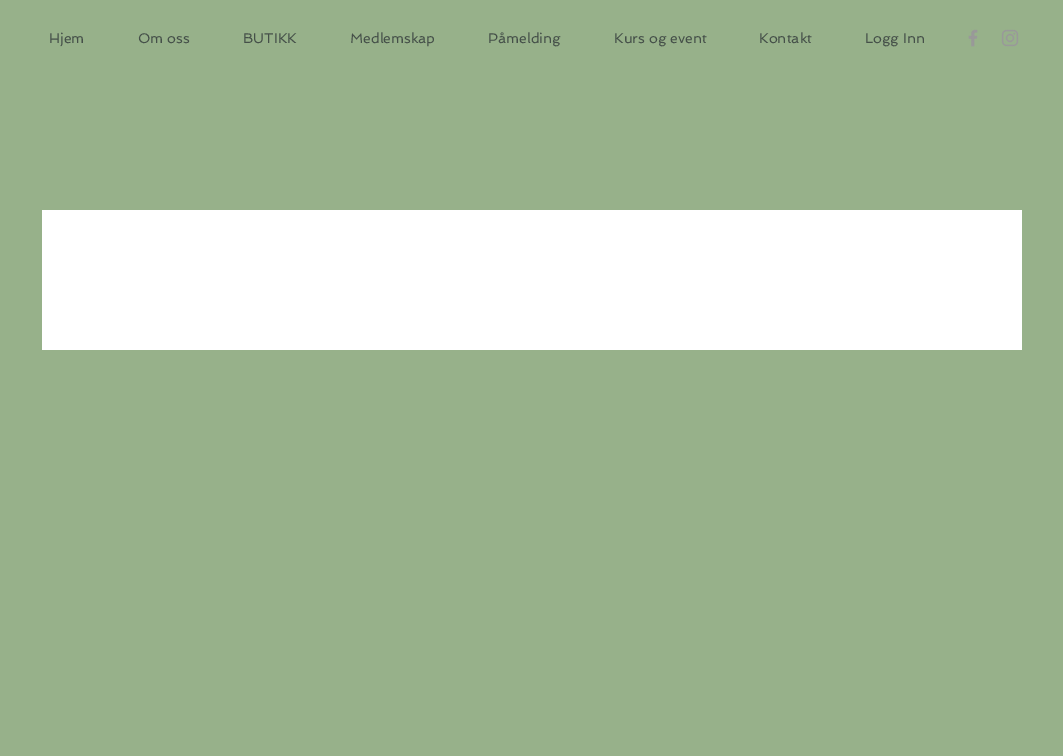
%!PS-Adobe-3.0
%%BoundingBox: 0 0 1063 756
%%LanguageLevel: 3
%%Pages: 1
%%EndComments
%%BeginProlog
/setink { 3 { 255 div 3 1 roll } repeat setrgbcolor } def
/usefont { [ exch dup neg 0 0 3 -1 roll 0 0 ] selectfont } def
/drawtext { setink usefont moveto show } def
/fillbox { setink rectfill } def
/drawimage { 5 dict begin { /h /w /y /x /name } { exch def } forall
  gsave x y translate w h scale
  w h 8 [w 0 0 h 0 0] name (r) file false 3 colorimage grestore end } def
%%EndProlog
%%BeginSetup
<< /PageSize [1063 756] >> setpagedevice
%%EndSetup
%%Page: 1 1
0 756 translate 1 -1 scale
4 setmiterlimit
0 0 1063 756 151 177 138 fillbox
(Hjem) 49 43 /Spinnaker-Regular 14 69 80 73 drawtext
(Om oss) 138 43 /Spinnaker-Regular 14 69 80 73 drawtext
(BUTIKK) 243 43 /Spinnaker-Regular 14 69 80 73 drawtext
(Medlemskap) 350 43 /Spinnaker-Regular 14 69 80 73 drawtext
(Påmelding) 488 43 /Spinnaker-Regular 14 69 80 73 drawtext
(Kurs og event) 614 43 /Spinnaker-Regular 14 69 80 73 drawtext
(Kontakt) 759 43 /Spinnaker-Regular 14 69 80 73 drawtext
(Logg Inn) 865 43 /Spinnaker-Regular 14 69 80 73 drawtext
(assets/img1.rgb) 968 29 10 18 drawimage
(assets/img2.rgb) 1001 29 18 18 drawimage
42 210 980 140 255 255 255 fillbox
showpage
%%EOF
